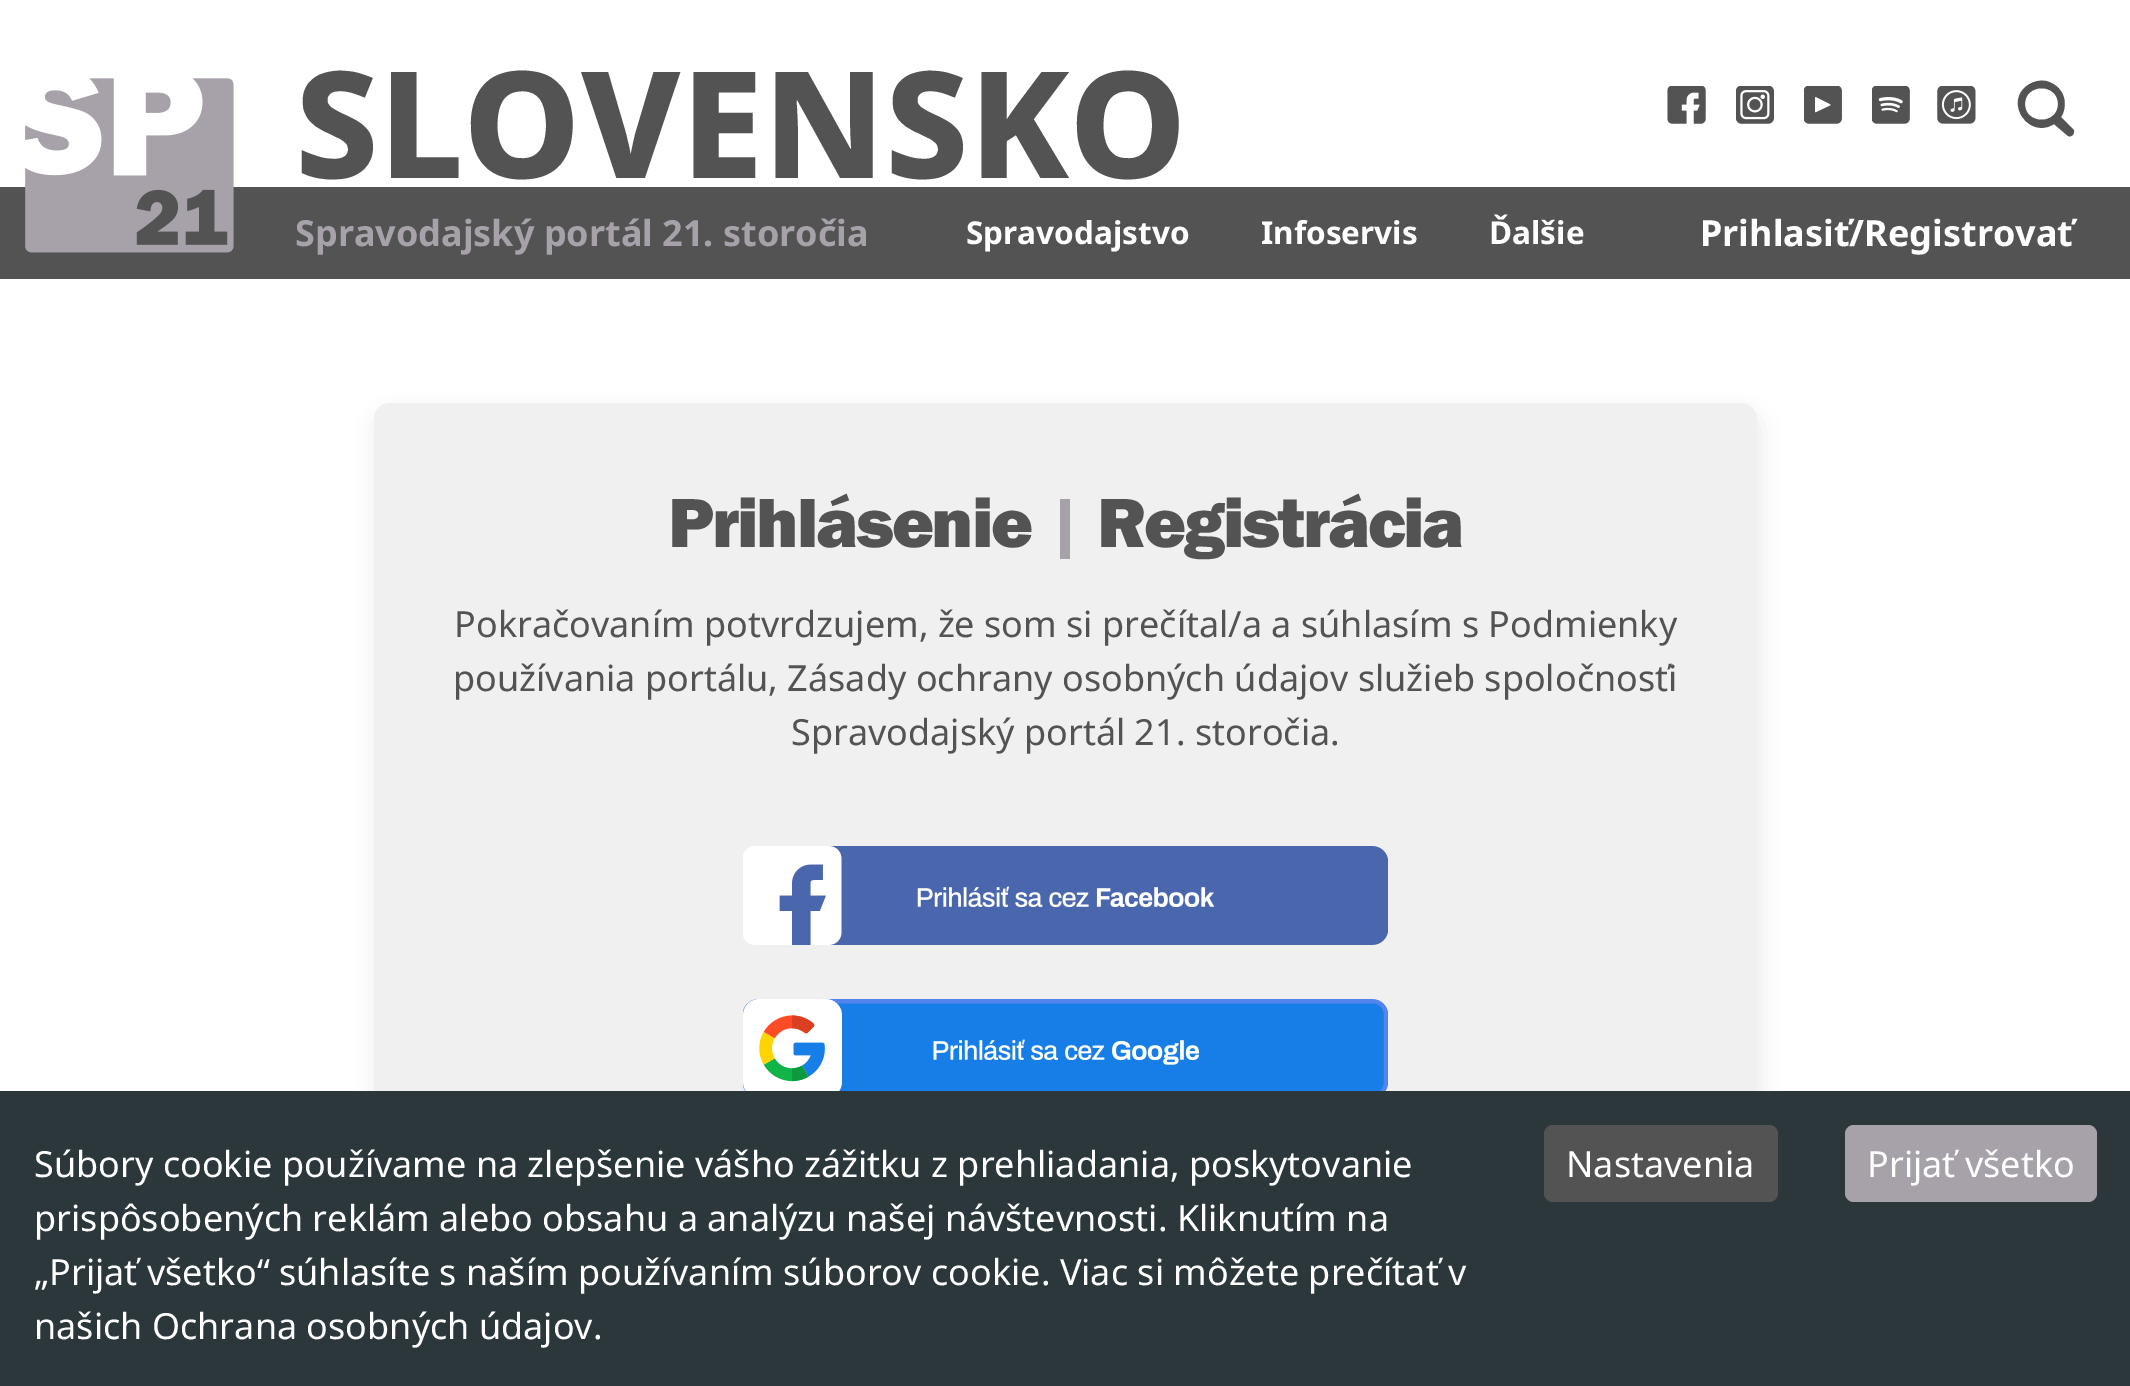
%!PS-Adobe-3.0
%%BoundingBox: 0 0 2130 1386
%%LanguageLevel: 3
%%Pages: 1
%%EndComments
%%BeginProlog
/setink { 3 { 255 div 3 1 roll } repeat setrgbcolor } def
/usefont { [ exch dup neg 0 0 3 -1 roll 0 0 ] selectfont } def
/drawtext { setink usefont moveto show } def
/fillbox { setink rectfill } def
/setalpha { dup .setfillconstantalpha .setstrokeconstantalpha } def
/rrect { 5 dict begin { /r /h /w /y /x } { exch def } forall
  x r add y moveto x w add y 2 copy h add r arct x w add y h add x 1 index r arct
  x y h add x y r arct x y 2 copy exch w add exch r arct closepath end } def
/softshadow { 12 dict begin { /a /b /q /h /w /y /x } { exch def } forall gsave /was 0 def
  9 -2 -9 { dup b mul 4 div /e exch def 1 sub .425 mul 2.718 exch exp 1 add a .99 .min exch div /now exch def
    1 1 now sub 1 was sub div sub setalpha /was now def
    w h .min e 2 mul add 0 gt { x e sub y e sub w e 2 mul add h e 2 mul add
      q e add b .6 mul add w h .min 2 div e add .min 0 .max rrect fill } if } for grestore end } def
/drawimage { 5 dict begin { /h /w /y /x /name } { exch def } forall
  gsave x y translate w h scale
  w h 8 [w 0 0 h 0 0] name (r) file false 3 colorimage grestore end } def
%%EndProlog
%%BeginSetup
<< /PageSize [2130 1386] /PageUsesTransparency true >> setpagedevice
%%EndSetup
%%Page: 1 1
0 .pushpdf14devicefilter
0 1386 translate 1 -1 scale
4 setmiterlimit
0 0 2130 1386 255 255 255 fillbox
0 187 2130 92 83 83 83 fillbox
(assets/img1.rgb) 25 78 209 175 drawimage
(SLOVENSKO) 295 178 /NotoSans-ExtraBold 148.5 83 83 83 drawtext
(assets/img2.rgb) 1667 86 39 38 drawimage
(assets/img3.rgb) 1736 86 38 38 drawimage
(assets/img4.rgb) 1804 86 38 38 drawimage
(assets/img5.rgb) 1872 86 38 38 drawimage
(assets/img6.rgb) 1937 86 39 38 drawimage
2073 129 moveto 2061 117 lineto 2065 111 2066 102 2063 95 curveto 2060 88 2054 83 2046 81 curveto 2040 80 2034 81 2028 85 curveto 2003 102 2029 140 2054 124 curveto 2068 136 lineto 2072 138 2076 132 2073 129 curveto closepath 2025 104 moveto 2025 83 2058 83 2058 104 curveto 2058 125 2025 125 2025 104 curveto closepath fill
(Spravodajský portál 21. storočia) 295 246 /NotoSans-Bold 36 167 161 170 drawtext
(Spravodajstvo) 966 244 /NotoSans-Bold 31.5 255 255 255 drawtext
(Infoservis) 1261 244 /NotoSans-Bold 31.5 255 255 255 drawtext
(Ďalšie) 1489 244 /NotoSans-Bold 31.5 255 255 255 drawtext
(Prihlasiť/Registrovať) 1700 246 /NotoSans-Bold 36 255 255 255 drawtext
171 171 171 setink
376 414 1384 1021 16 11 0.25 softshadow
240 240 240 setink
374 403 1383 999 16 rrect fill
/FranklinGothic-Black 72 usefont
83 83 83 setink
668 547 moveto -2.25 0 (Prihlásenie) ashow
167 161 170 setink
1047 547 moveto -2.25 0 (|) ashow
83 83 83 setink
1097 547 moveto -2.25 0 (Registrácia) ashow
(Pokračovaním potvrdzujem, že som si prečítal/a a súhlasím s Podmienky) 454 637 /NotoSans-Regular 36 83 83 83 drawtext
(používania portálu, Zásady ochrany osobných údajov služieb spoločnosťi) 453 691 /NotoSans-Regular 36 83 83 83 drawtext
(Spravodajský portál 21. storočia.) 791 745 /NotoSans-Regular 36 83 83 83 drawtext
(assets/img7.rgb) 743 846 645 99 drawimage
(assets/img8.rgb) 743 999 645 92 drawimage
0 1091 2130 295 43 55 59 fillbox
(Súbory cookie používame na zlepšenie vášho zážitku z prehliadania, poskytovanie) 34 1177 /NotoSans-Regular 36 255 255 255 drawtext
(prispôsobených reklám alebo obsahu a analýzu našej návštevnosti. Kliknutím na) 34 1231 /NotoSans-Regular 36 255 255 255 drawtext
(„Prijať všetko“ súhlasíte s naším používaním súborov cookie. Viac si môžete prečítať v) 34 1285 /NotoSans-Regular 36 255 255 255 drawtext
(našich Ochrana osobných údajov.) 34 1339 /NotoSans-Regular 36 255 255 255 drawtext
83 83 83 setink
1544 1125 234 77 9 rrect fill
(Nastavenia) 1566 1177 /NotoSans-Regular 36 255 255 255 drawtext
167 161 170 setink
1845 1125 252 77 9 rrect fill
(Prijať všetko) 1867 1177 /NotoSans-Regular 36 255 255 255 drawtext
.poppdf14devicefilter showpage
%%EOF
